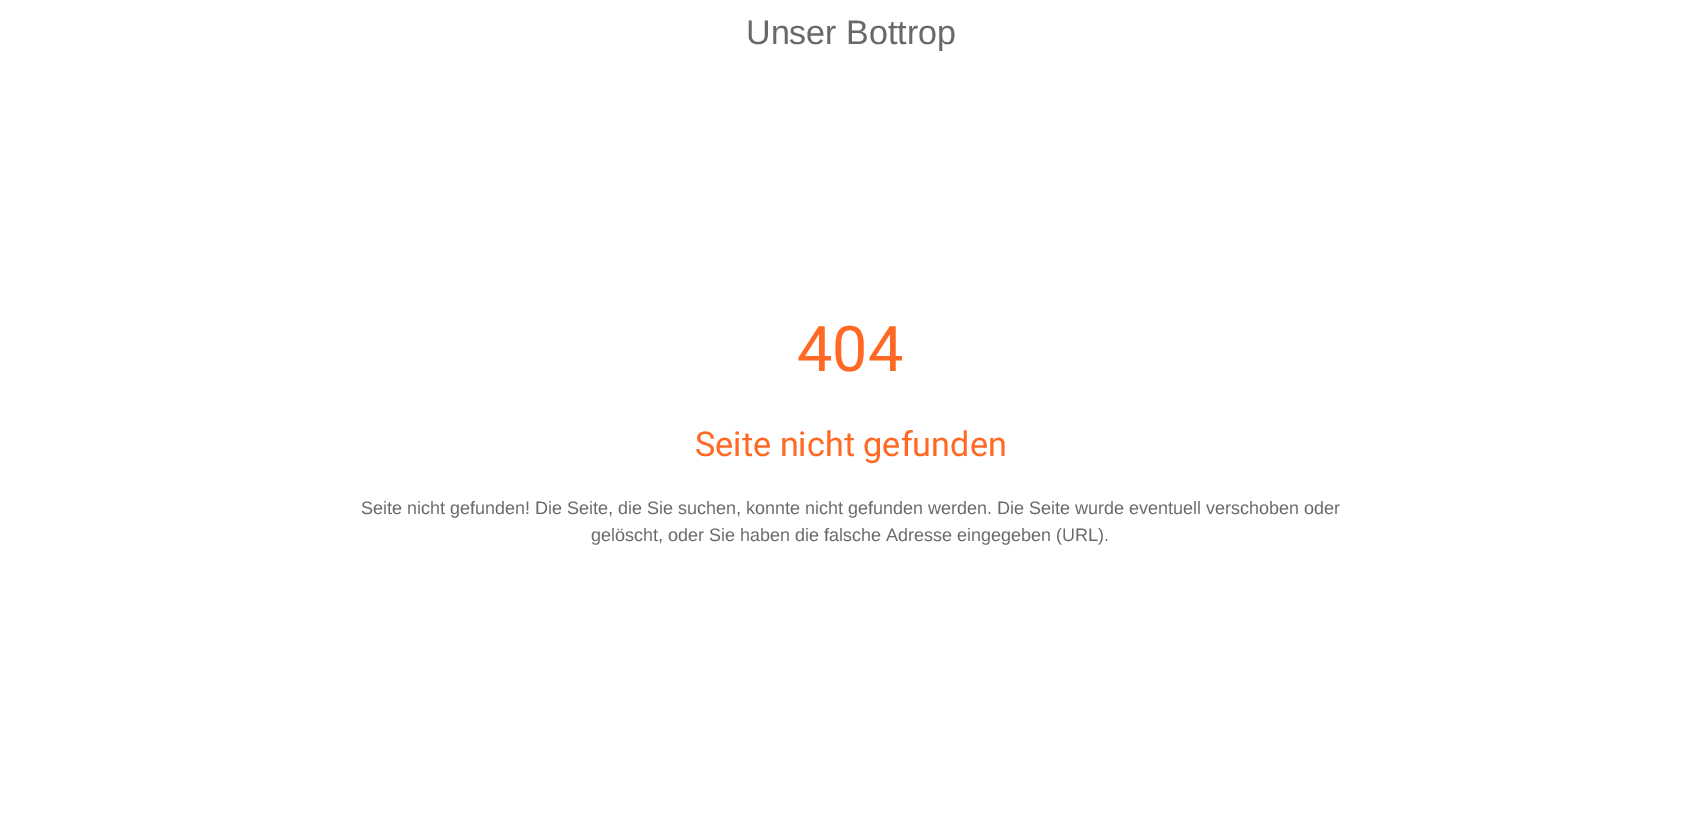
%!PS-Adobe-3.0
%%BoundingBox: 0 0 1701 818
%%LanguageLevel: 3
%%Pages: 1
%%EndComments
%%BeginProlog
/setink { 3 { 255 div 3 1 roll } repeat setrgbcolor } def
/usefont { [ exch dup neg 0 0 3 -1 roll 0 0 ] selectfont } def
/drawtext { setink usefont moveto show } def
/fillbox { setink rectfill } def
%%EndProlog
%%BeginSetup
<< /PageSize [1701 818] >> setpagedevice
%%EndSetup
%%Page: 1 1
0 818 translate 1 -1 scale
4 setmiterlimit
0 0 1701 818 255 255 255 fillbox
(Unser Bottrop) 746 44 /LiberationSans-Regular 34 105 105 105 drawtext
(404) 797 371 /Roboto-Regular 63 255 105 36 drawtext
(Seite nicht gefunden) 695 456 /Roboto-Regular 34.25 255 105 36 drawtext
(Seite nicht gefunden! Die Seite, die Sie suchen, konnte nicht gefunden werden. Die Seite wurde eventuell verschoben oder) 361 514 /LiberationSans-Regular 18 105 105 105 drawtext
(gelöscht, oder Sie haben die falsche Adresse eingegeben \(URL\).) 591 541 /LiberationSans-Regular 18 105 105 105 drawtext
showpage
%%EOF
